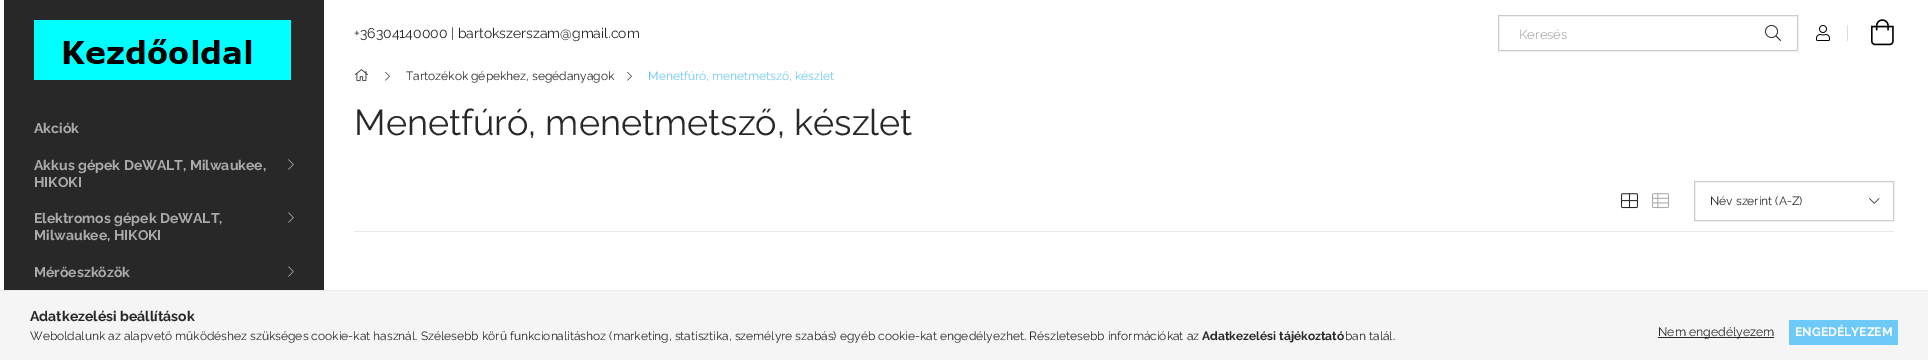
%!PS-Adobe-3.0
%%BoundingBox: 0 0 1928 360
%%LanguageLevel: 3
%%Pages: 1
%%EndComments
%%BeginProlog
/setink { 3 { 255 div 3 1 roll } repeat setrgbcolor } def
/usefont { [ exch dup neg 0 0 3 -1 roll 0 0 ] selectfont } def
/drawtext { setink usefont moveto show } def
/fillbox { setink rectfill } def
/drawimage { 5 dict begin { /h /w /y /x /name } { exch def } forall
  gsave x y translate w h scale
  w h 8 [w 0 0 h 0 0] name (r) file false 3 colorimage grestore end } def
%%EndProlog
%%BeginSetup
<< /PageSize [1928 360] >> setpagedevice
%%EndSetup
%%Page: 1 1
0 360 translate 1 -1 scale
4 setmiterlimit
0 0 1928 360 255 255 255 fillbox
4 0 320 290 40 40 40 fillbox
(assets/img1.rgb) 34 20 257 60 drawimage
(Akciók) 34 133 /Raleway-Bold 14 170 170 170 drawtext
(Akkus gépek DeWALT, Milwaukee,) 34 170 /Raleway-Bold 14 170 170 170 drawtext
(HIKOKI) 34 187 /Raleway-Bold 14 170 170 170 drawtext
(assets/img2.rgb) 288 159 6 11 drawimage
(Elektromos gépek DeWALT,) 34 223 /Raleway-Bold 14 170 170 170 drawtext
(Milwaukee, HIKOKI) 34 240 /Raleway-Bold 14 170 170 170 drawtext
(assets/img2.rgb) 288 212 6 11 drawimage
(Mérőeszközök) 34 277 /Raleway-Bold 14 170 170 170 drawtext
(assets/img2.rgb) 288 266 6 11 drawimage
(+36304140000 | bartokszerszam@gmail.com) 354 38 /Raleway-Regular 14 40 40 40 drawtext
204 204 204 setink
1498.5 15.5 299 35 rectstroke
(Keresés) 1519 39 /Raleway-Regular 13 170 170 170 drawtext
(assets/img3.rgb) 1765 25 16 16 drawimage
(assets/img4.rgb) 1816 25 14 16 drawimage
1847 25 1 16 221 221 221 fillbox
(assets/img5.rgb) 1871 19 23 27 drawimage
(assets/img6.rgb) 354 69 14 12 drawimage
(assets/img7.rgb) 385 71 5 10 drawimage
(Tartozékok gépekhez, segédanyagok) 406 80 /Raleway-Regular 12 40 40 40 drawtext
(assets/img7.rgb) 627 71 5 10 drawimage
(Menetfúró, menetmetsző, készlet) 648 80 /Raleway-Regular 12 109 201 247 drawtext
(Menetfúró, menetmetsző, készlet) 354 135 /Raleway-Regular 36 40 40 40 drawtext
354 231 1540 1 234 234 234 fillbox
(assets/img8.rgb) 1621 193 17 16 drawimage
(assets/img9.rgb) 1652 193 17 16 drawimage
204 204 204 setink
1694.5 181.5 199 39 rectstroke
(Név szerint \(A-Z\)) 1710 205 /Raleway-Regular 12 40 40 40 drawtext
(assets/img10.rgb) 1869 198 11 6 drawimage
0 291 1928 69 245 245 245 fillbox
0 290 1928 1 234 234 234 fillbox
(Adatkezelési beállítások) 30 321 /Raleway-Bold 14 40 40 40 drawtext
(Weboldalunk az alapvető működéshez szükséges cookie-kat használ. Szélesebb körű funkcionalitáshoz \(marketing, statisztika, személyre szabás\) egyéb cookie-kat engedélyezhet. Részletesebb információkat az) 30 340 /Raleway-Regular 12 40 40 40 drawtext
(Adatkezelési tájékoztató) 1202 340 /Raleway-Bold 12 40 40 40 drawtext
(ban talál.) 1345 340 /Raleway-Regular 12 40 40 40 drawtext
1658 337 116 1 40 40 40 fillbox
(Nem engedélyezem) 1658 336 /Raleway-Regular 12.25 40 40 40 drawtext
1789 320 109 25 109 201 247 fillbox
(ENGEDÉLYEZEM) 1795 336 /Raleway-Bold 12.25 255 255 255 drawtext
showpage
%%EOF
